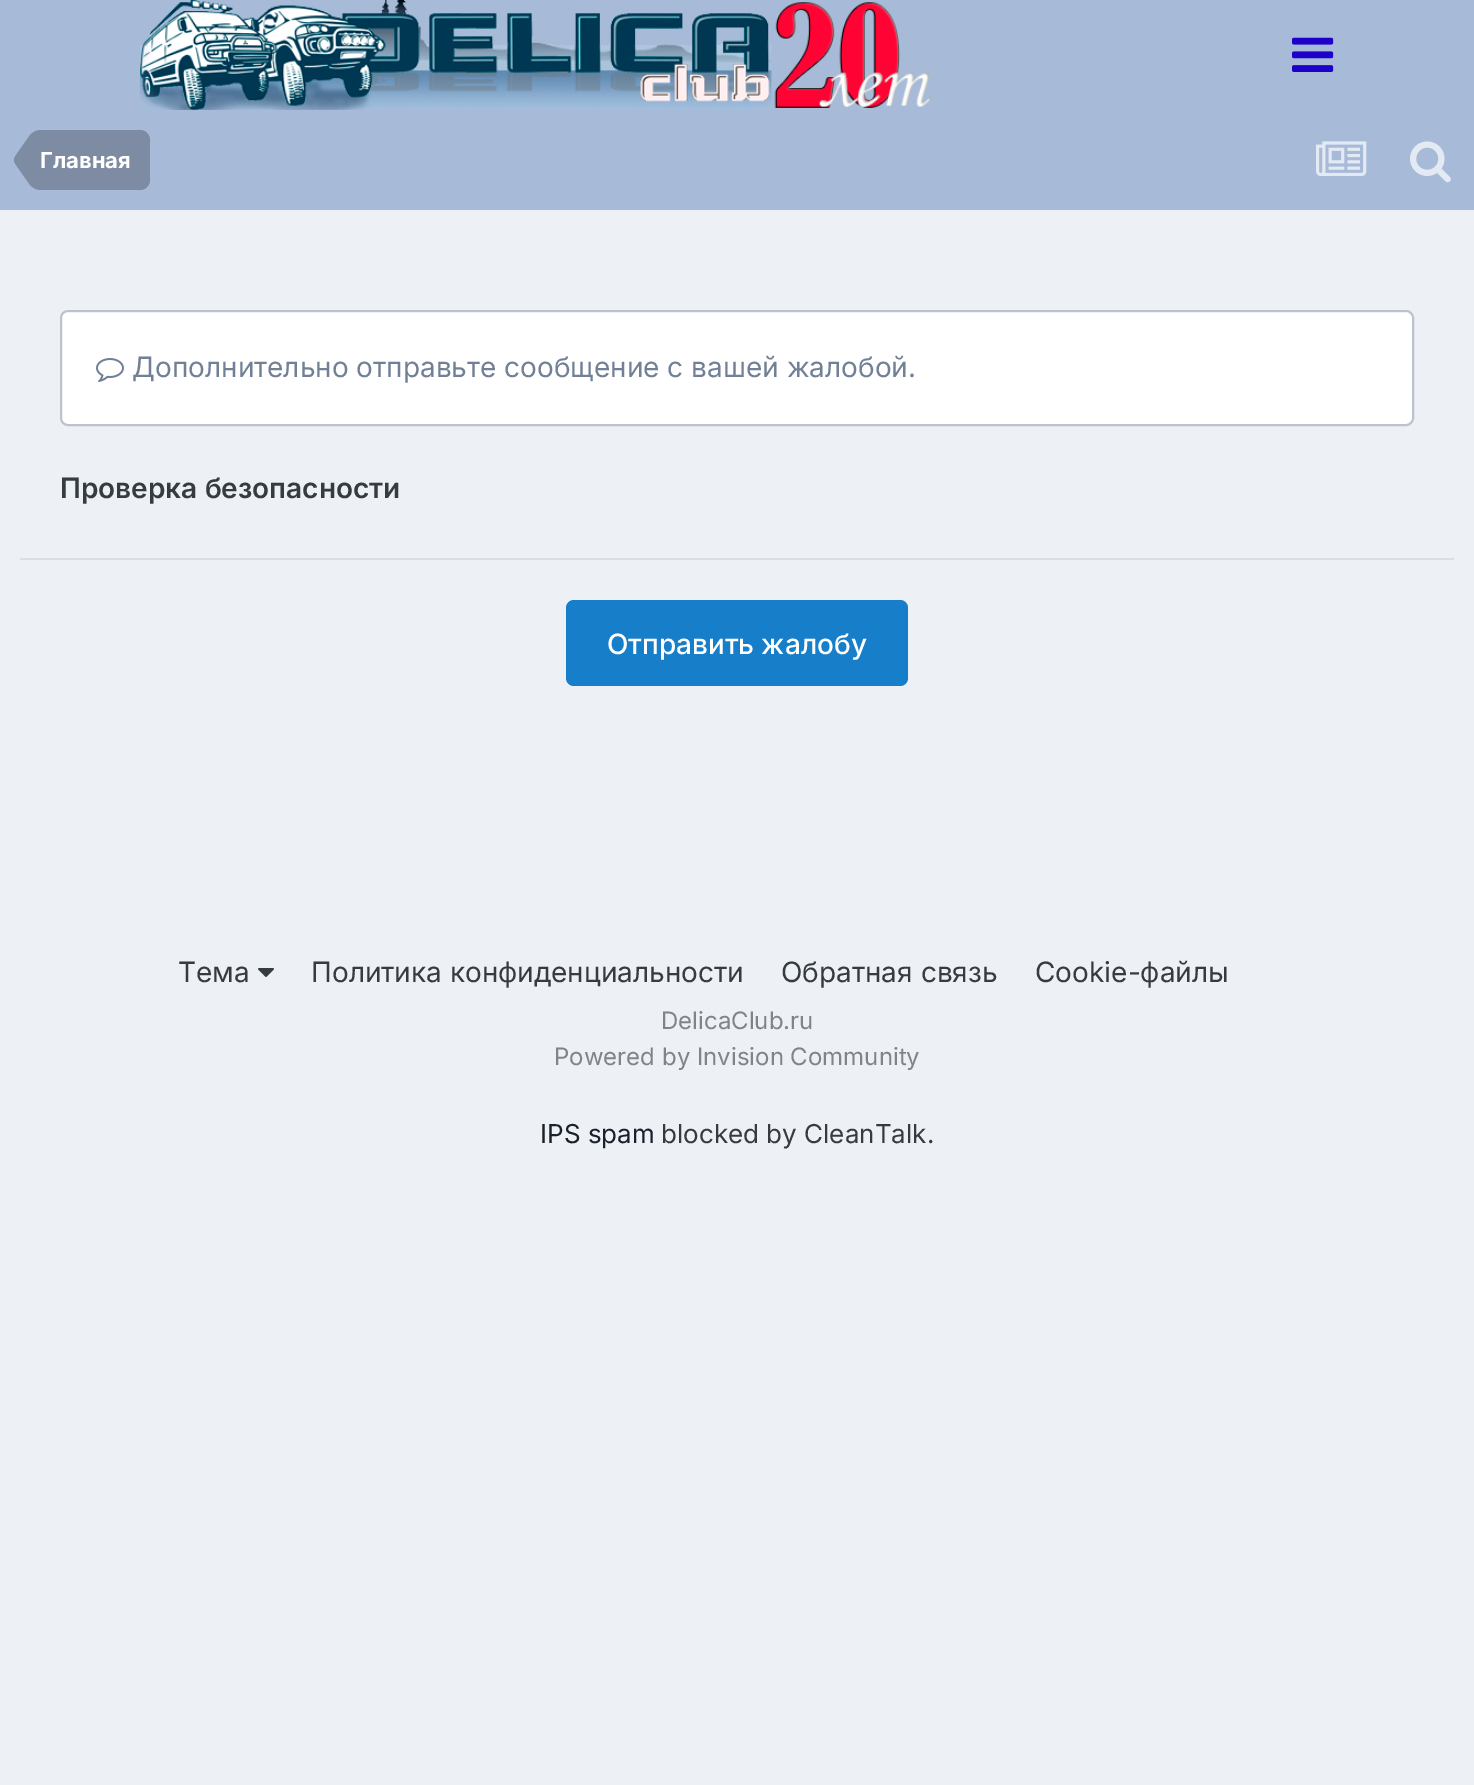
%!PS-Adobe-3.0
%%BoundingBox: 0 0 1474 1785
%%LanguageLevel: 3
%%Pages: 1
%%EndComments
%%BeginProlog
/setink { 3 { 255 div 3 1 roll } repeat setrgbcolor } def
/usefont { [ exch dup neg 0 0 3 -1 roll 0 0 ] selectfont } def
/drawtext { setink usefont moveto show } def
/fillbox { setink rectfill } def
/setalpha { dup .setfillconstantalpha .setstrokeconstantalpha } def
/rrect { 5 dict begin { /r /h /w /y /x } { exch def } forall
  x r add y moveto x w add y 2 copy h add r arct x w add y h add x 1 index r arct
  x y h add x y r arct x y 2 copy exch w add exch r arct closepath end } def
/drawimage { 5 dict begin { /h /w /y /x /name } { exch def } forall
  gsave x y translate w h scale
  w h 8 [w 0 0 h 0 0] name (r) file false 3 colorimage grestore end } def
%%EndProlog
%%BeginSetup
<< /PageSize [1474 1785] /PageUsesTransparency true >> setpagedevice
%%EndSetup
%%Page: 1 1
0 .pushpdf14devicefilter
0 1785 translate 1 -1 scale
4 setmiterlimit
0 0 1474 1785 237 240 244 fillbox
0 0 1474 210 167 187 217 fillbox
(assets/img1.rgb) 140 0 791 110 drawimage
(assets/img2.rgb) 1292 37 42 35 drawimage
125 140 163 setink
40 130 moveto 140 130 lineto 145.5 130 150 134.5 150 140 curveto 150 180 lineto 150 185.5 145.5 190 140 190 curveto 40 190 lineto closepath fill
40 160 moveto 40 190 lineto 36.5 190 33 188 30 185 curveto 15 163.5 lineto 14.5 162.5 14 161.5 14 160 curveto closepath 40 160 moveto 14 160 lineto 14 158.5 14.5 157.5 15 156.5 curveto 30 135 lineto 33 132 36.5 130 40 130 curveto closepath fill
(Главная) 40 168 /Inter-Bold 22 255 255 255 drawtext
(assets/img3.rgb) 1316 141 51 35 drawimage
(assets/img4.rgb) 1410 141 41 42 drawimage
62 312 1350 112 6 rrect fill
0.4 setalpha
113 128 150 setink
2 setlinewidth
61 311 1352 114 7 rrect stroke
1 setalpha
(assets/img5.rgb) 96 358 28 24 drawimage
(Дополнительно отправьте сообщение с вашей жалобой.) 132 377 /Inter-Regular 28 113 128 150 drawtext
(Проверка безопасности) 60 498 /Inter-SemiBold 28 53 60 65 drawtext
20 558 1434 2 218 223 230 fillbox
23 126 201 setink
566 600 342 86 8 rrect fill
(Отправить жалобу) 607 654 /Inter-Medium 28 255 255 255 drawtext
(Тема) 178 982 /Inter-Regular 28 53 60 65 drawtext
(assets/img6.rgb) 258 968 16 9 drawimage
(Политика конфиденциальности) 311 982 /Inter-Regular 28 53 60 65 drawtext
(Обратная связь) 781 982 /Inter-Regular 28 53 60 65 drawtext
(Cookie-файлы) 1035 982 /Inter-Regular 28 53 60 65 drawtext
(DelicaClub.ru) 661 1029 /Inter-Regular 24 127 132 137 drawtext
(Powered by Invision Community) 554 1065 /Inter-Regular 24 127 132 137 drawtext
(IPS spam) 540 1143 /Inter-Regular 26 26 32 44 drawtext
(blocked by CleanTalk.) 661 1143 /Inter-Regular 26 53 60 65 drawtext
.poppdf14devicefilter showpage
%%EOF
